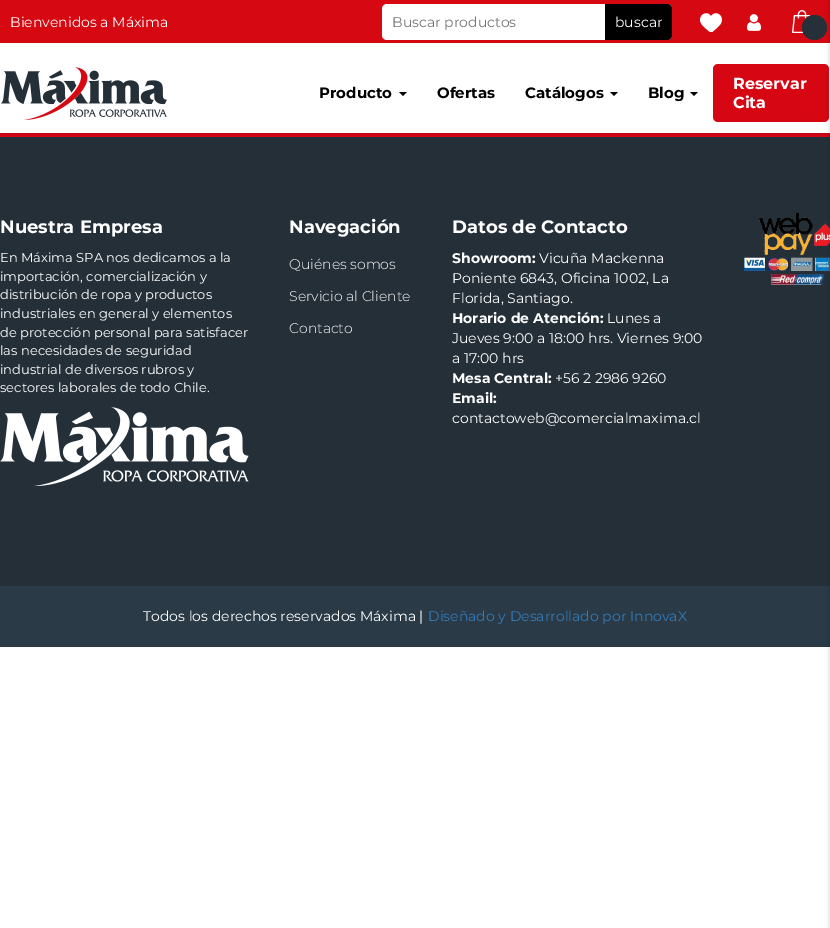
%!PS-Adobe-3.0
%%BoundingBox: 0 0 830 928
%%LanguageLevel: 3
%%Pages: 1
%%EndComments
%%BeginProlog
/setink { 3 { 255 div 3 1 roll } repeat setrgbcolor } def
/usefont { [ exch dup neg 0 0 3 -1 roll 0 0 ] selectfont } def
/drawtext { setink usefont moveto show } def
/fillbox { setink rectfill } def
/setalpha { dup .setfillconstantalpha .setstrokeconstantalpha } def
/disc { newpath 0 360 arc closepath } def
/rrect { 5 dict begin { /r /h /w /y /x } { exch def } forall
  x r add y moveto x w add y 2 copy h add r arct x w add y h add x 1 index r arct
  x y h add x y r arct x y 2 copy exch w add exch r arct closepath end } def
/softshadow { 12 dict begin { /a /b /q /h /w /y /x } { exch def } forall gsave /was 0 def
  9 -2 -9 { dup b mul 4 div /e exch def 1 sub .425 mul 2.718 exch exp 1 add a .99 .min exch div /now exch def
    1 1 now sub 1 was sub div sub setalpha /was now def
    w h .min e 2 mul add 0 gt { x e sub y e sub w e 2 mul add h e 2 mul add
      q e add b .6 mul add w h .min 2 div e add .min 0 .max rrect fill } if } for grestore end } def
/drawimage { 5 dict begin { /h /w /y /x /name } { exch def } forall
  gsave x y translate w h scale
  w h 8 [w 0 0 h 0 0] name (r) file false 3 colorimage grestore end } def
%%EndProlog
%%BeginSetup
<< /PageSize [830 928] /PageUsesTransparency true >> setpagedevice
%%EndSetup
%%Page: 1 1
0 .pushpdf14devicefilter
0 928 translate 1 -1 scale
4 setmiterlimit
0 0 830 928 255 255 255 fillbox
0 133 830 4 214 7 19 fillbox
0 137 830 449 37 47 56 fillbox
0 0 0 setink
0 0 830 133 0 2.5 0.18 softshadow
0 43 830 90 255 255 255 fillbox
0 0 830 43 214 8 18 fillbox
(Bienvenidos a Máxima) 10 27 /Montserrat-Regular 14 255 255 255 drawtext
382 4 290 36 5 rrect fill
(Buscar productos) 392 27 /Montserrat-Regular 14 117 117 117 drawtext
0 0 0 setink
605 4 moveto 667 4 lineto 670 4 672 6 672 9 curveto 672 35 lineto 672 38 670 40 667 40 curveto 605 40 lineto closepath fill
(buscar) 615 27 /Montserrat-Regular 14 255 255 255 drawtext
(assets/img1.rgb) 700 13 22 19 drawimage
(assets/img2.rgb) 747 14 14 17 drawimage
(assets/img3.rgb) 792 10 19 23 drawimage
37 48 56 setink
814.5 27.5 12.5 disc fill
(assets/img4.rgb) 1 67 166 53 drawimage
(Producto) 319 98 /Montserrat-Bold 15 0 0 0 drawtext
399 92 moveto 407 92 lineto 403 96 lineto closepath fill
(Ofertas) 437 98 /Montserrat-Bold 15 0 0 0 drawtext
(Catálogos) 525 98 /Montserrat-Bold 15 0 0 0 drawtext
610 92 moveto 618 92 lineto 614 96 lineto closepath fill
(Blog) 648 98 /Montserrat-Bold 15 0 0 0 drawtext
690 92 moveto 698 92 lineto 694 96 lineto closepath fill
214 7 19 setink
713 64 116 58 5 rrect fill
(Reservar) 733 89 /Montserrat-Bold 16 255 255 255 drawtext
(Cita) 733 108 /Montserrat-Bold 16 255 255 255 drawtext
(Nuestra Empresa) 0 233 /Montserrat-Bold 18 255 255 255 drawtext
(En Máxima SPA nos dedicamos a la) 0 262 /Montserrat-Regular 13 255 255 255 drawtext
(importación, comercialización y) 0 281 /Montserrat-Regular 13 255 255 255 drawtext
(distribución de ropa y productos) 0 299 /Montserrat-Regular 13 255 255 255 drawtext
(industriales en general y elementos) 0 318 /Montserrat-Regular 13 255 255 255 drawtext
(de protección personal para satisfacer) 0 337 /Montserrat-Regular 13 255 255 255 drawtext
(las necesidades de seguridad) 0 355 /Montserrat-Regular 13 255 255 255 drawtext
(industrial de diversos rubros y) 0 374 /Montserrat-Regular 13 255 255 255 drawtext
(sectores laborales de todo Chile.) 0 392 /Montserrat-Regular 13 255 255 255 drawtext
(assets/img5.rgb) 0 407 249 79 drawimage
(Navegación) 289 233 /Montserrat-Bold 18 255 255 255 drawtext
(Quiénes somos) 289 269 /Montserrat-Light 14 255 255 255 drawtext
(Servicio al Cliente) 289 301 /Montserrat-Light 14 255 255 255 drawtext
(Contacto) 289 333 /Montserrat-Light 14 255 255 255 drawtext
(Datos de Contacto) 452 233 /Montserrat-Bold 18 255 255 255 drawtext
(Showroom:) 452 263 /Montserrat-Bold 14 255 255 255 drawtext
(Vicuña Mackenna) 539 263 /Montserrat-Regular 14 255 255 255 drawtext
(Poniente 6843, Oficina 1002, La) 452 283 /Montserrat-Regular 14 255 255 255 drawtext
(Florida, Santiago.) 452 303 /Montserrat-Regular 14 255 255 255 drawtext
(Horario de Atención:) 452 323 /Montserrat-Bold 14 255 255 255 drawtext
(Lunes a) 607 323 /Montserrat-Regular 14 255 255 255 drawtext
(Jueves 9:00 a 18:00 hrs. Viernes 9:00) 452 343 /Montserrat-Regular 14 255 255 255 drawtext
(a 17:00 hrs) 452 363 /Montserrat-Regular 14 255 255 255 drawtext
(Mesa Central:) 452 383 /Montserrat-Bold 14 255 255 255 drawtext
(+56 2 2986 9260) 555 383 /Montserrat-Regular 14 255 255 255 drawtext
(Email:) 452 403 /Montserrat-Bold 14 255 255 255 drawtext
(contactoweb@comercialmaxima.cl) 452 423 /Montserrat-Regular 14 255 255 255 drawtext
(assets/img6.rgb) 744 213 86 72 drawimage
0 586 830 61 42 58 70 fillbox
0 0 0 setink
830 0 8 928 0 2.5 0.18 softshadow
(Todos los derechos reservados Máxima |) 143 621 /Montserrat-Regular 14 255 255 255 drawtext
(Diseñado y Desarrollado por InnovaX) 428 621 /Montserrat-Regular 14 51 122 183 drawtext
.poppdf14devicefilter showpage
%%EOF
